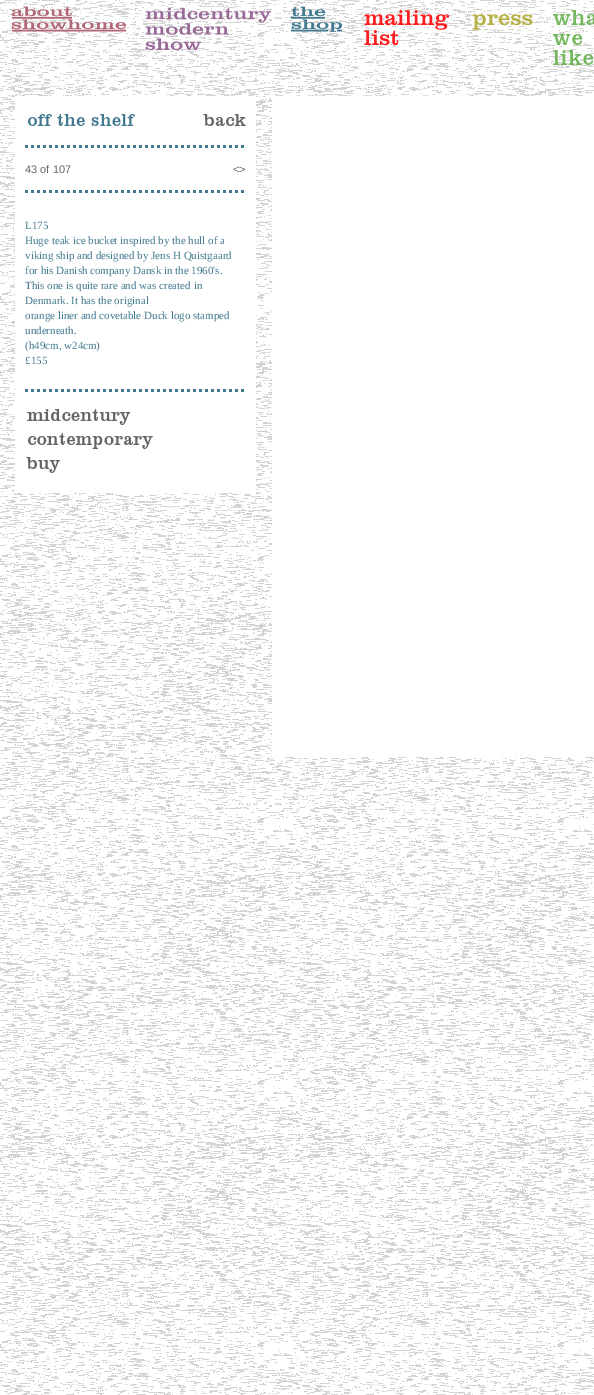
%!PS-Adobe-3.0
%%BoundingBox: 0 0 594 1395
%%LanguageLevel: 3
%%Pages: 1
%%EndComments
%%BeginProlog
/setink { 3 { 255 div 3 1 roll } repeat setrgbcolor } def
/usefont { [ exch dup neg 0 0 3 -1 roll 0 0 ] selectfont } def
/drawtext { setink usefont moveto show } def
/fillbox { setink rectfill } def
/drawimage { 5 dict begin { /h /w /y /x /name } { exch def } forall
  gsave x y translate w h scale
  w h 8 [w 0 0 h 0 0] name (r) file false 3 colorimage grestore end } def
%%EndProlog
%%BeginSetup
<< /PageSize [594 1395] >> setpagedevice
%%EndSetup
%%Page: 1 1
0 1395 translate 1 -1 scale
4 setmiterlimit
0 0 594 1395 255 255 255 fillbox
(assets/img1.rgb) 0 0 594 1395 drawimage
(assets/img2.rgb) 11 6 115 26 drawimage
(assets/img3.rgb) 145 7 127 44 drawimage
(assets/img4.rgb) 291 6 51 26 drawimage
(assets/img5.rgb) 364 10 85 36 drawimage
(assets/img6.rgb) 472 14 61 16 drawimage
(assets/img7.rgb) 553 10 41 55 drawimage
15 96 241 397 255 255 255 fillbox
(assets/img8.rgb) 28 114 107 12 drawimage
(assets/img9.rgb) 203 114 43 12 drawimage
(assets/img10.rgb) 25 145 219 3 drawimage
(43 of 107) 25 173 /LiberationSans-Regular 11 102 102 102 drawtext
(<>) 233 173 /LiberationSans-Regular 11 102 102 102 drawtext
(assets/img10.rgb) 25 190 219 3 drawimage
(L175) 25 229 /LiberationSerif-Regular 11 67 122 144 drawtext
(Huge teak ice bucket inspired by the hull of a) 25 244 /LiberationSerif-Regular 11 67 122 144 drawtext
(viking ship and designed by Jens H Quistgaard) 25 259 /LiberationSerif-Regular 11 67 122 144 drawtext
(for his Danish company Dansk in the 1960's.) 25 274 /LiberationSerif-Regular 11 67 122 144 drawtext
(This one is quite rare and was created in) 25 289 /LiberationSerif-Regular 11 67 122 144 drawtext
(Denmark. It has the original) 25 304 /LiberationSerif-Regular 11 67 122 144 drawtext
(orange liner and covetable Duck logo stamped) 25 319 /LiberationSerif-Regular 11 67 122 144 drawtext
(underneath.) 25 334 /LiberationSerif-Regular 11 67 122 144 drawtext
(\(h49cm, w24cm\)) 25 349 /LiberationSerif-Regular 11 67 122 144 drawtext
(£155) 25 364 /LiberationSerif-Regular 11 67 122 144 drawtext
(assets/img10.rgb) 25 389 219 3 drawimage
(assets/img11.rgb) 27 409 104 16 drawimage
(assets/img12.rgb) 28 433 125 16 drawimage
(assets/img13.rgb) 26 457 34 16 drawimage
272 96 322 661 255 255 255 fillbox
showpage
%%EOF
